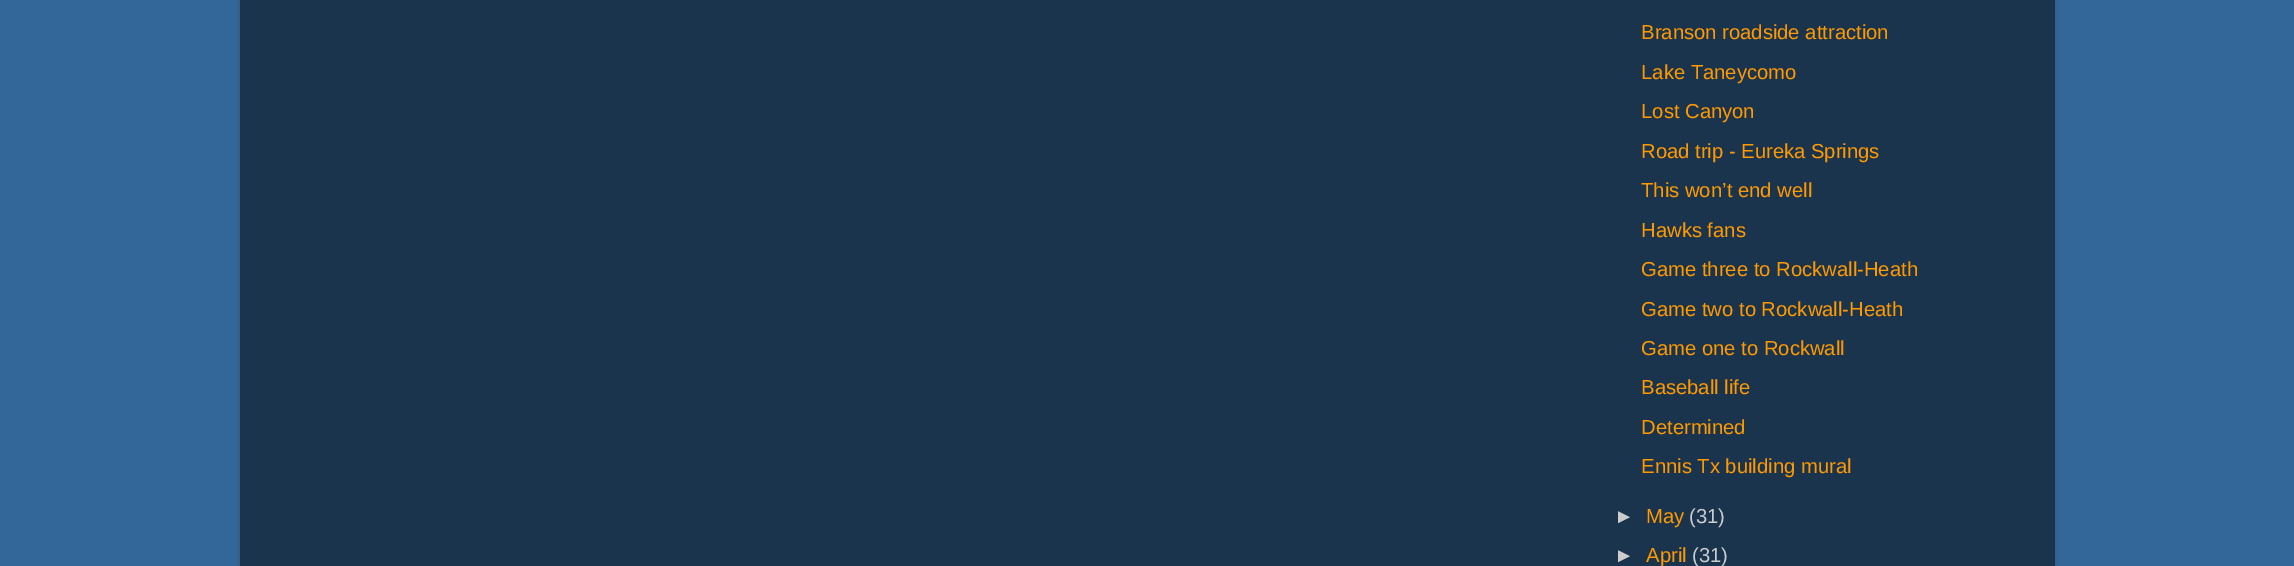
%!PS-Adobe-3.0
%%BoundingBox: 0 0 2294 566
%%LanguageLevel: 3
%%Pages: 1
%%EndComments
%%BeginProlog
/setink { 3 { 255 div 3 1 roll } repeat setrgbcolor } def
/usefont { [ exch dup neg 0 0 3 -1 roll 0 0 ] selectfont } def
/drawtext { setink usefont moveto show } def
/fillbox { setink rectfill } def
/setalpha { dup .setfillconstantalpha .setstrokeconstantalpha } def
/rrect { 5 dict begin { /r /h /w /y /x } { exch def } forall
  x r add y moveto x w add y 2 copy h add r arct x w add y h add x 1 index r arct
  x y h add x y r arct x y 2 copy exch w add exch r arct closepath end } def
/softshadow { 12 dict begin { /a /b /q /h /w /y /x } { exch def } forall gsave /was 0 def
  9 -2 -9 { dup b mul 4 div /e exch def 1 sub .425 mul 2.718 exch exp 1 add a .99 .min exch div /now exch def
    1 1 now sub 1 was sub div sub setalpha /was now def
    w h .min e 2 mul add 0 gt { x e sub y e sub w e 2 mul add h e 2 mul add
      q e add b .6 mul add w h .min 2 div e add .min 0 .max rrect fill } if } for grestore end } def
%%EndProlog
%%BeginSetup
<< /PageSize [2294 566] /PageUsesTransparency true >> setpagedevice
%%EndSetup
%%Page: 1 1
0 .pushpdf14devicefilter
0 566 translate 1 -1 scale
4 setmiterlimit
0 0 2294 566 51 102 153 fillbox
0 0 0 setink
240 -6 1815 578 0 2 0.15 softshadow
240 0 1815 566 26 52 77 fillbox
(Branson roadside attraction) 1641 39 /LiberationSans-Regular 20.25 255 153 0 drawtext
(Lake Taneycomo) 1641 79 /LiberationSans-Regular 20.25 255 153 0 drawtext
(Lost Canyon) 1641 118 /LiberationSans-Regular 20.25 255 153 0 drawtext
(Road trip - Eureka Springs) 1641 158 /LiberationSans-Regular 20.25 255 153 0 drawtext
(This won’t end well) 1641 197 /LiberationSans-Regular 20.25 255 153 0 drawtext
(Hawks fans) 1641 237 /LiberationSans-Regular 20.25 255 153 0 drawtext
(Game three to Rockwall-Heath) 1641 276 /LiberationSans-Regular 20.25 255 153 0 drawtext
(Game two to Rockwall-Heath) 1641 316 /LiberationSans-Regular 20.25 255 153 0 drawtext
(Game one to Rockwall) 1641 355 /LiberationSans-Regular 20.25 255 153 0 drawtext
(Baseball life) 1641 394 /LiberationSans-Regular 20.25 255 153 0 drawtext
(Determined) 1641 434 /LiberationSans-Regular 20.25 255 153 0 drawtext
(Ennis Tx building mural) 1641 473 /LiberationSans-Regular 20.25 255 153 0 drawtext
(►) 1614 523 /LiberationSans-Regular 20.25 204 204 204 drawtext
(May) 1646 523 /LiberationSans-Regular 20.25 255 153 0 drawtext
(\(31\)) 1689 523 /LiberationSans-Regular 20.25 204 204 204 drawtext
(►) 1614 562 /LiberationSans-Regular 20.25 204 204 204 drawtext
(April) 1646 562 /LiberationSans-Regular 20.25 255 153 0 drawtext
(\(31\)) 1692 562 /LiberationSans-Regular 20.25 204 204 204 drawtext
.poppdf14devicefilter showpage
%%EOF
